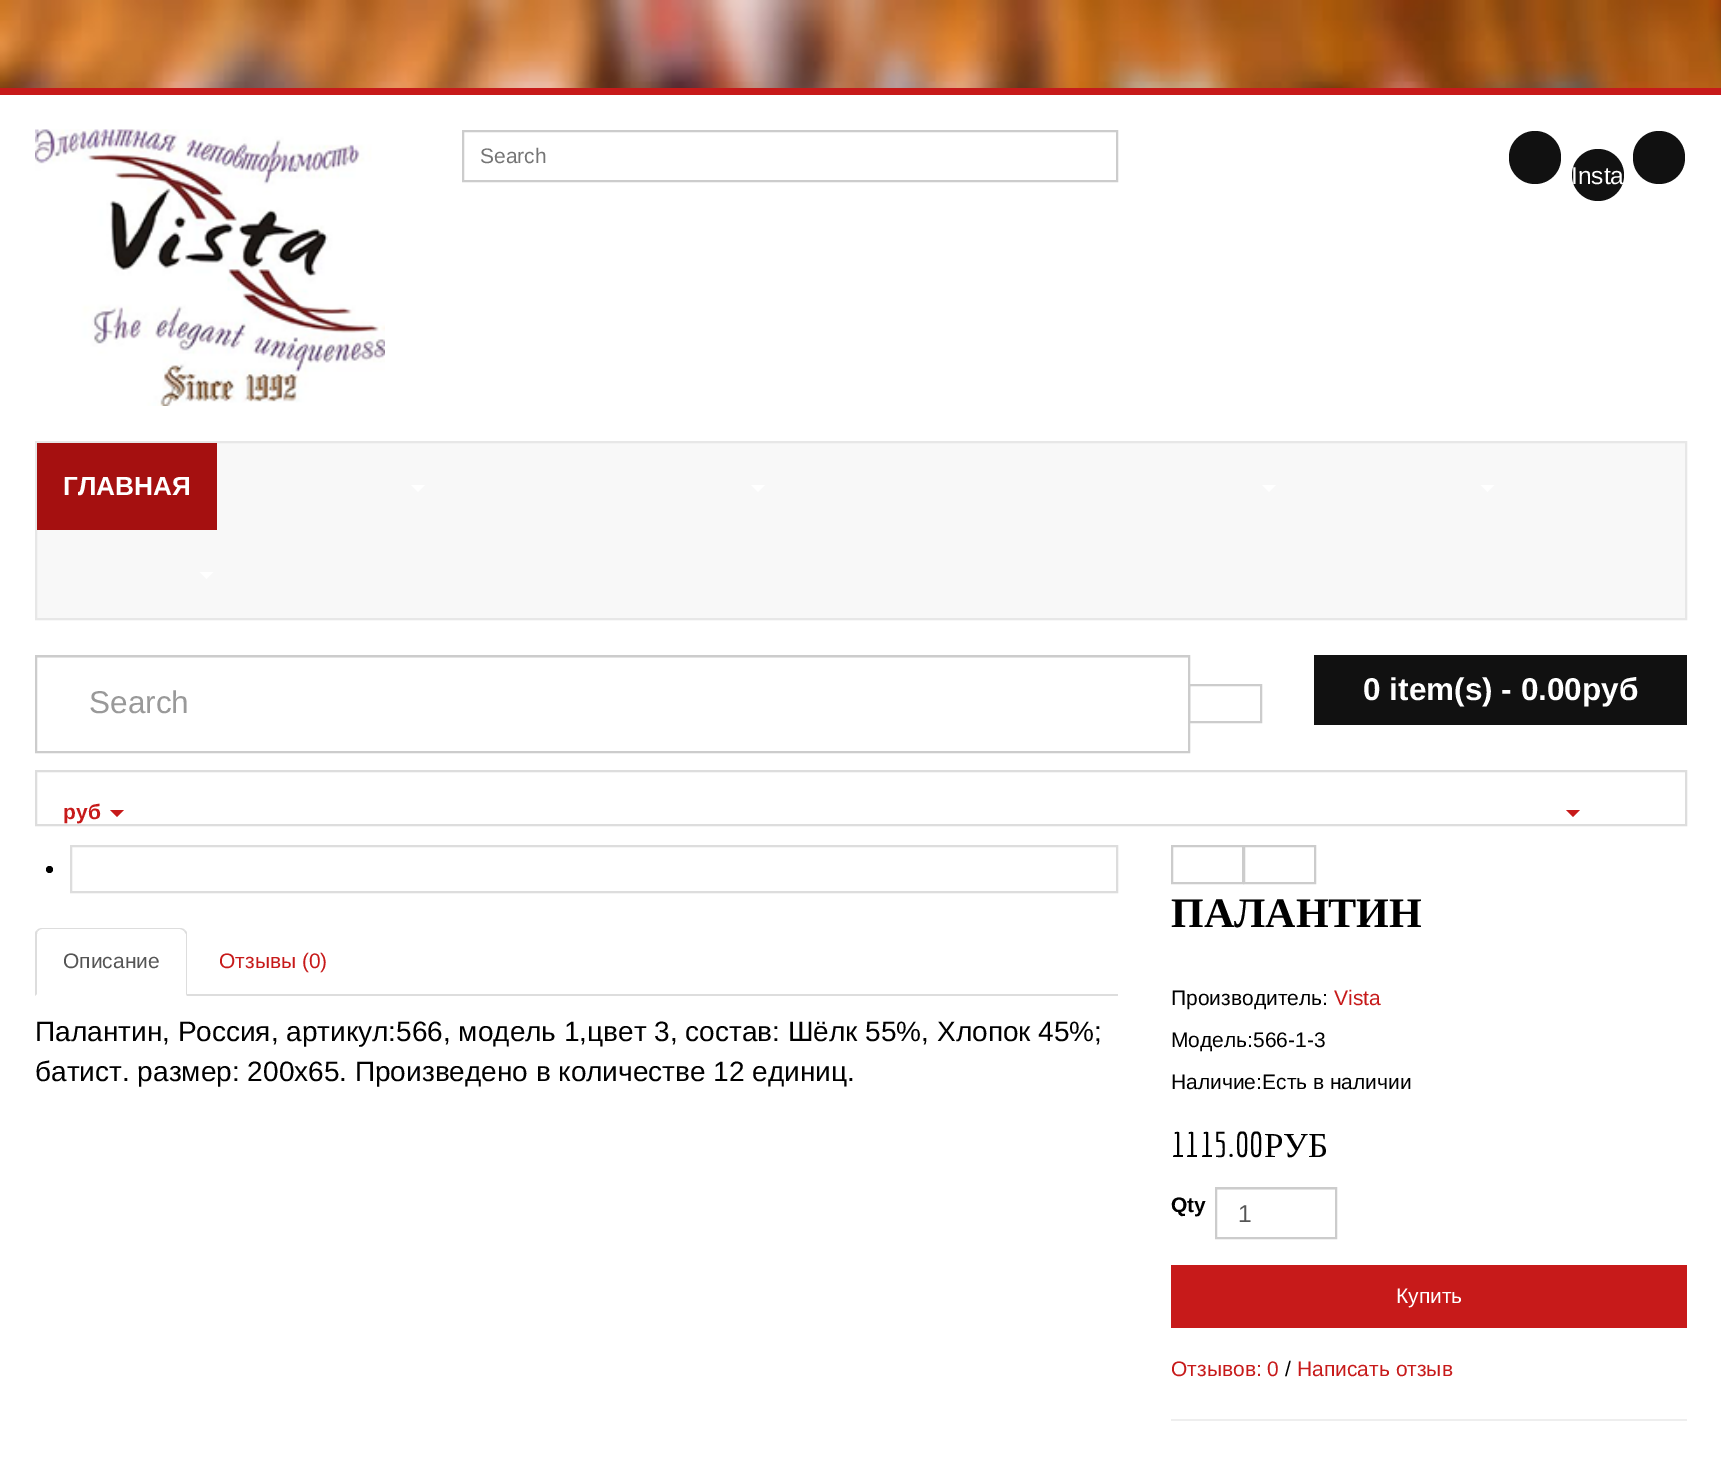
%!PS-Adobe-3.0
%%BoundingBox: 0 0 1721 1464
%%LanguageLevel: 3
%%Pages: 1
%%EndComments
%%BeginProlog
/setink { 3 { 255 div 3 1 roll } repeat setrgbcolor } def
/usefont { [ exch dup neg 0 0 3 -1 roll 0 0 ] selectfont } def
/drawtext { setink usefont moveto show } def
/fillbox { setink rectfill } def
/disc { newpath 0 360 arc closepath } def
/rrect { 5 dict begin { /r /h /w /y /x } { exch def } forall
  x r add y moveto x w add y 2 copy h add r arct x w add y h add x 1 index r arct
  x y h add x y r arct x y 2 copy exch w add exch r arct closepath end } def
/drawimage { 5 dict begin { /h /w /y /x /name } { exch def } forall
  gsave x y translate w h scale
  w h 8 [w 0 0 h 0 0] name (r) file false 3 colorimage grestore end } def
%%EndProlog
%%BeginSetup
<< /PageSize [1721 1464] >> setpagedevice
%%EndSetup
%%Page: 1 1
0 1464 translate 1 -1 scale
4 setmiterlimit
0 0 1721 1464 255 255 255 fillbox
(assets/img1.rgb) 0 0 1721 88 drawimage
0 88 1721 7 199 26 26 fillbox
(assets/img2.rgb) 35 129 350 277 drawimage
204 204 204 setink
2 setlinewidth
463 131 654 50 rectstroke
(Search) 480 163 /LiberationSans-Regular 21 117 117 117 drawtext
17 17 17 setink
1509 131 52 53 26 rrect fill
1598 175 26 disc fill
(Insta) 1571 184 /LiberationSans-Regular 24.5 255 255 255 drawtext
17 17 17 setink
1633 131 52 53 26 rrect fill
248 248 248 setink
36 442 moveto 1686 442 lineto 1686 619 lineto 36 619 lineto closepath gsave fill grestore
231 231 231 setink
stroke
37 443 180 87 165 16 16 fillbox
(ГЛАВНАЯ) 63 495 /LiberationSans-Bold 26.25 255 255 255 drawtext
411 485 moveto 425 485 lineto 418 492 lineto closepath fill
751 485 moveto 765 485 lineto 758 492 lineto closepath fill
1262 485 moveto 1276 485 lineto 1269 492 lineto closepath fill
1480.5 485 moveto 1494.5 485 lineto 1487.5 492 lineto closepath fill
199.5 572 moveto 213.5 572 lineto 206.5 579 lineto closepath fill
37 657 1151 1 236 236 236 fillbox
204 204 204 setink
36 656 1153 96 rectstroke
(Search) 89 713 /LiberationSans-Regular 31.5 153 153 153 drawtext
204 204 204 setink
1189 685 72 37 rectstroke
1314 655 373 70 17 17 17 fillbox
(0 item\(s\) - 0.00руб) 1363 700 /LiberationSans-Bold 31.5 255 255 255 drawtext
221 221 221 setink
36 771 1650 54 rectstroke
(руб) 63 819 /LiberationSans-Bold 21 199 26 26 drawtext
110 810 moveto 124 810 lineto 117 817 lineto closepath fill
1566 810 moveto 1580 810 lineto 1573 817 lineto closepath fill
0 0 0 setink
49.5 869.5 3.5 disc fill
221 221 221 setink
71 846 1046 46 rectstroke
42 928 moveto 40 928 38 929 37 930 curveto 38 931 lineto 39 930 40 929 42 929 curveto 180 929 lineto 181 929 183 930 184 931 curveto 185 930 lineto 184 929 182 928 180 928 curveto closepath fill
187 996 moveto 187 934 lineto 187 932 186 931 185 930 curveto 184 931 lineto 186 934 lineto 186 994 lineto closepath fill
35 996 moveto 37 994 lineto 37 934 lineto 37 933 37 932 38 931 curveto 37 930 lineto 36 931 35 932 35 934 curveto closepath fill
(Описание) 63 968 /LiberationSans-Regular 21 85 85 85 drawtext
(Отзывы \(0\)) 219 968 /LiberationSans-Regular 21 199 26 26 drawtext
187 994 931 2 221 221 221 fillbox
(Палантин, Россия, артикул:566, модель 1,цвет 3, состав: Шёлк 55%, Хлопок 45%;) 35 1041 /LiberationSans-Regular 28 0 0 0 drawtext
(батист. размер: 200х65. Произведено в количестве 12 единиц.) 35 1081 /LiberationSans-Regular 28 0 0 0 drawtext
204 204 204 setink
1172 846 71 37 rectstroke
1244 846 71 37 rectstroke
(ПАЛАНТИН) 1171 927 /LiberationSerif-Bold 42 0 0 0 drawtext
(Производитель:) 1171 1005 /LiberationSans-Regular 21 0 0 0 drawtext
(Vista) 1334 1005 /LiberationSans-Regular 21 199 26 26 drawtext
(Модель:566-1-3) 1171 1047 /LiberationSans-Regular 21 0 0 0 drawtext
(Наличие:Есть в наличии) 1171 1089 /LiberationSans-Regular 21 0 0 0 drawtext
(1115.00) 1171 1157 /Economica-Regular 35 0 0 0 drawtext
(РУБ) 1264 1157 /LiberationSerif-Regular 35 0 0 0 drawtext
(Qty) 1171 1212 /LiberationSans-Bold 21 0 0 0 drawtext
1216 1189 119 1 236 236 236 fillbox
204 204 204 setink
1216 1188 120 50 rectstroke
(1) 1238 1222 /LiberationSans-Regular 24.5 85 85 85 drawtext
1171 1265 516 63 199 26 26 fillbox
(Купить) 1396 1303 /LiberationSans-Regular 21 255 255 255 drawtext
(Отзывов: 0) 1171 1376 /LiberationSans-Regular 21 199 26 26 drawtext
(/) 1285 1376 /LiberationSans-Regular 21 0 0 0 drawtext
(Написать отзыв) 1297 1376 /LiberationSans-Regular 21 199 26 26 drawtext
1171 1419 516 2 238 238 238 fillbox
showpage
%%EOF
